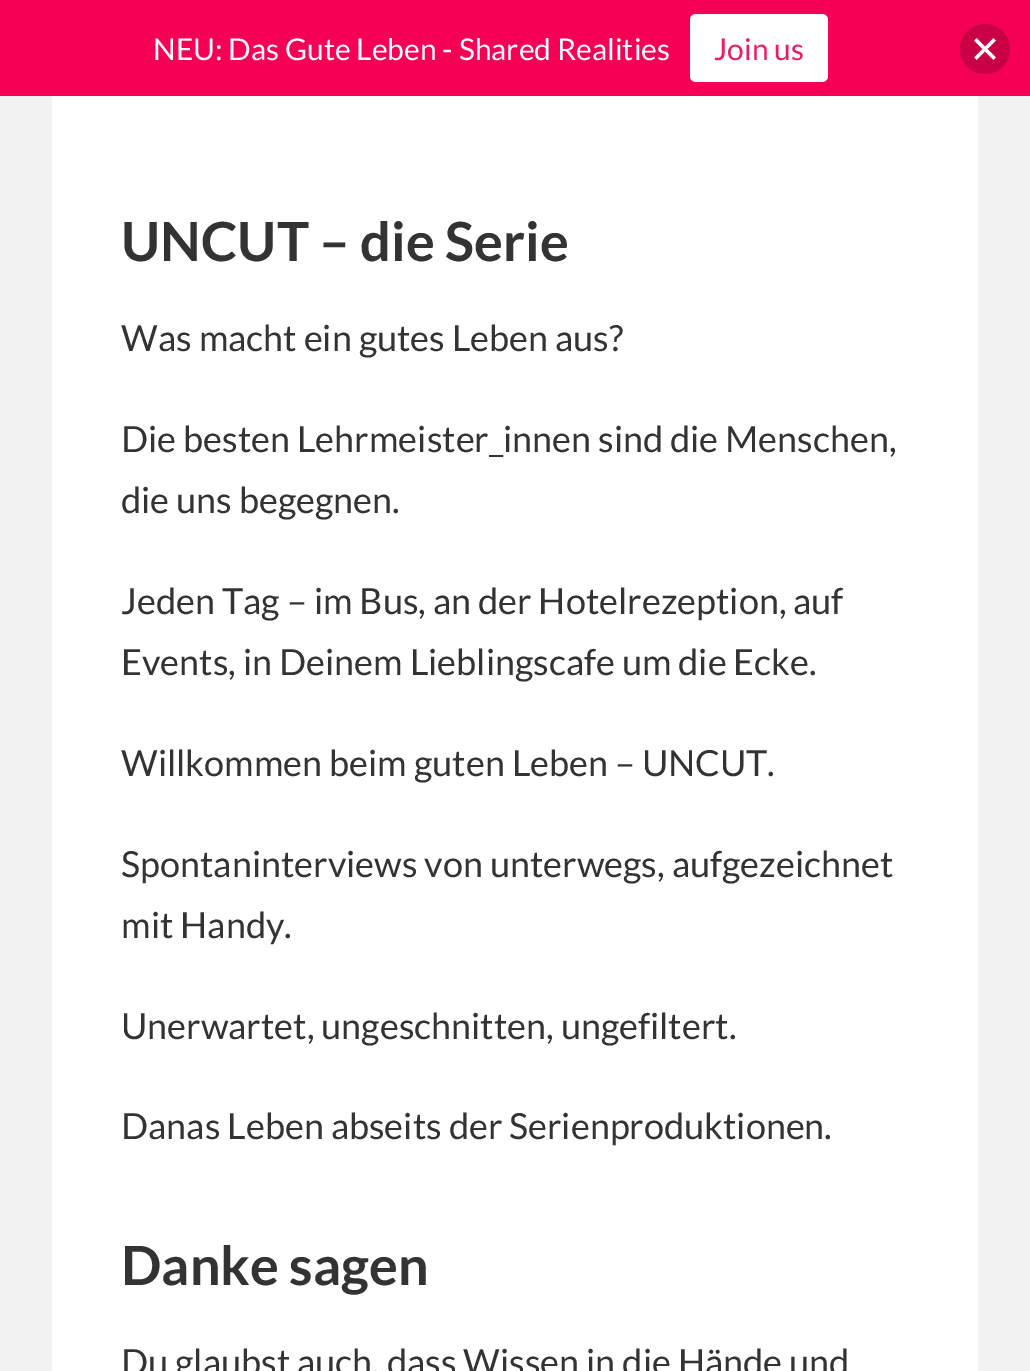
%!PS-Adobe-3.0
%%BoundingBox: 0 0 1030 1371
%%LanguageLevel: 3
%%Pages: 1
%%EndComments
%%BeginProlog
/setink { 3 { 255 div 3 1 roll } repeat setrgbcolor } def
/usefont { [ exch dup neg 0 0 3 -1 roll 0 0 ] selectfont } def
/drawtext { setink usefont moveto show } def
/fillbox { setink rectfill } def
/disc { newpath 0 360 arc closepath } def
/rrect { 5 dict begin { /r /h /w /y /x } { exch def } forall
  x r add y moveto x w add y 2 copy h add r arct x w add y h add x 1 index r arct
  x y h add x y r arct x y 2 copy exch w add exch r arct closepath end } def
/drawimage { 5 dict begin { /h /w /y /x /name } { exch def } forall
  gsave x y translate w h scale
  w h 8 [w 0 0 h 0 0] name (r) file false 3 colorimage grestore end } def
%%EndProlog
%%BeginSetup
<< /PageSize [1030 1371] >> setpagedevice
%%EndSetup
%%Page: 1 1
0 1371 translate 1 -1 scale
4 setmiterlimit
0 0 1030 1371 242 242 242 fillbox
0 0 1030 96 245 0 87 fillbox
(NEU: Das Gute Leben - Shared Realities) 153 60 /Lato-Regular 30 250 250 250 drawtext
255 255 255 setink
690 14 138 68 6 rrect fill
(Join us) 714 60 /Lato-Regular 30 233 30 98 drawtext
201 0 71 setink
985 49 25 disc fill
(assets/img1.rgb) 974 38 22 22 drawimage
52 96 926 1275 255 255 255 fillbox
(UNCUT – die Serie) 121 261 /Lato-Bold 54 51 51 51 drawtext
(Was macht ein gutes Leben aus?) 121 351 /Lato-Regular 36 51 51 51 drawtext
(Die besten Lehrmeister_innen sind die Menschen,) 121 452 /Lato-Regular 36 51 51 51 drawtext
(die uns begegnen.) 121 513 /Lato-Regular 36 51 51 51 drawtext
(Jeden Tag – im Bus, an der Hotelrezeption, auf) 121 614 /Lato-Regular 36 51 51 51 drawtext
(Events, in Deinem Lieblingscafe um die Ecke.) 121 675 /Lato-Regular 36 51 51 51 drawtext
(Willkommen beim guten Leben – UNCUT.) 121 776 /Lato-Regular 36 51 51 51 drawtext
(Spontaninterviews von unterwegs, aufgezeichnet) 121 877 /Lato-Regular 36 51 51 51 drawtext
(mit Handy.) 121 938 /Lato-Regular 36 51 51 51 drawtext
(Unerwartet, ungeschnitten, ungefiltert.) 121 1039 /Lato-Regular 36 51 51 51 drawtext
(Danas Leben abseits der Serienproduktionen.) 121 1139 /Lato-Regular 36 51 51 51 drawtext
(Danke sagen) 121 1285 /Lato-Bold 54 51 51 51 drawtext
(Du glaubst auch, dass Wissen in die Hände und) 121 1375 /Lato-Regular 36 51 51 51 drawtext
showpage
%%EOF
